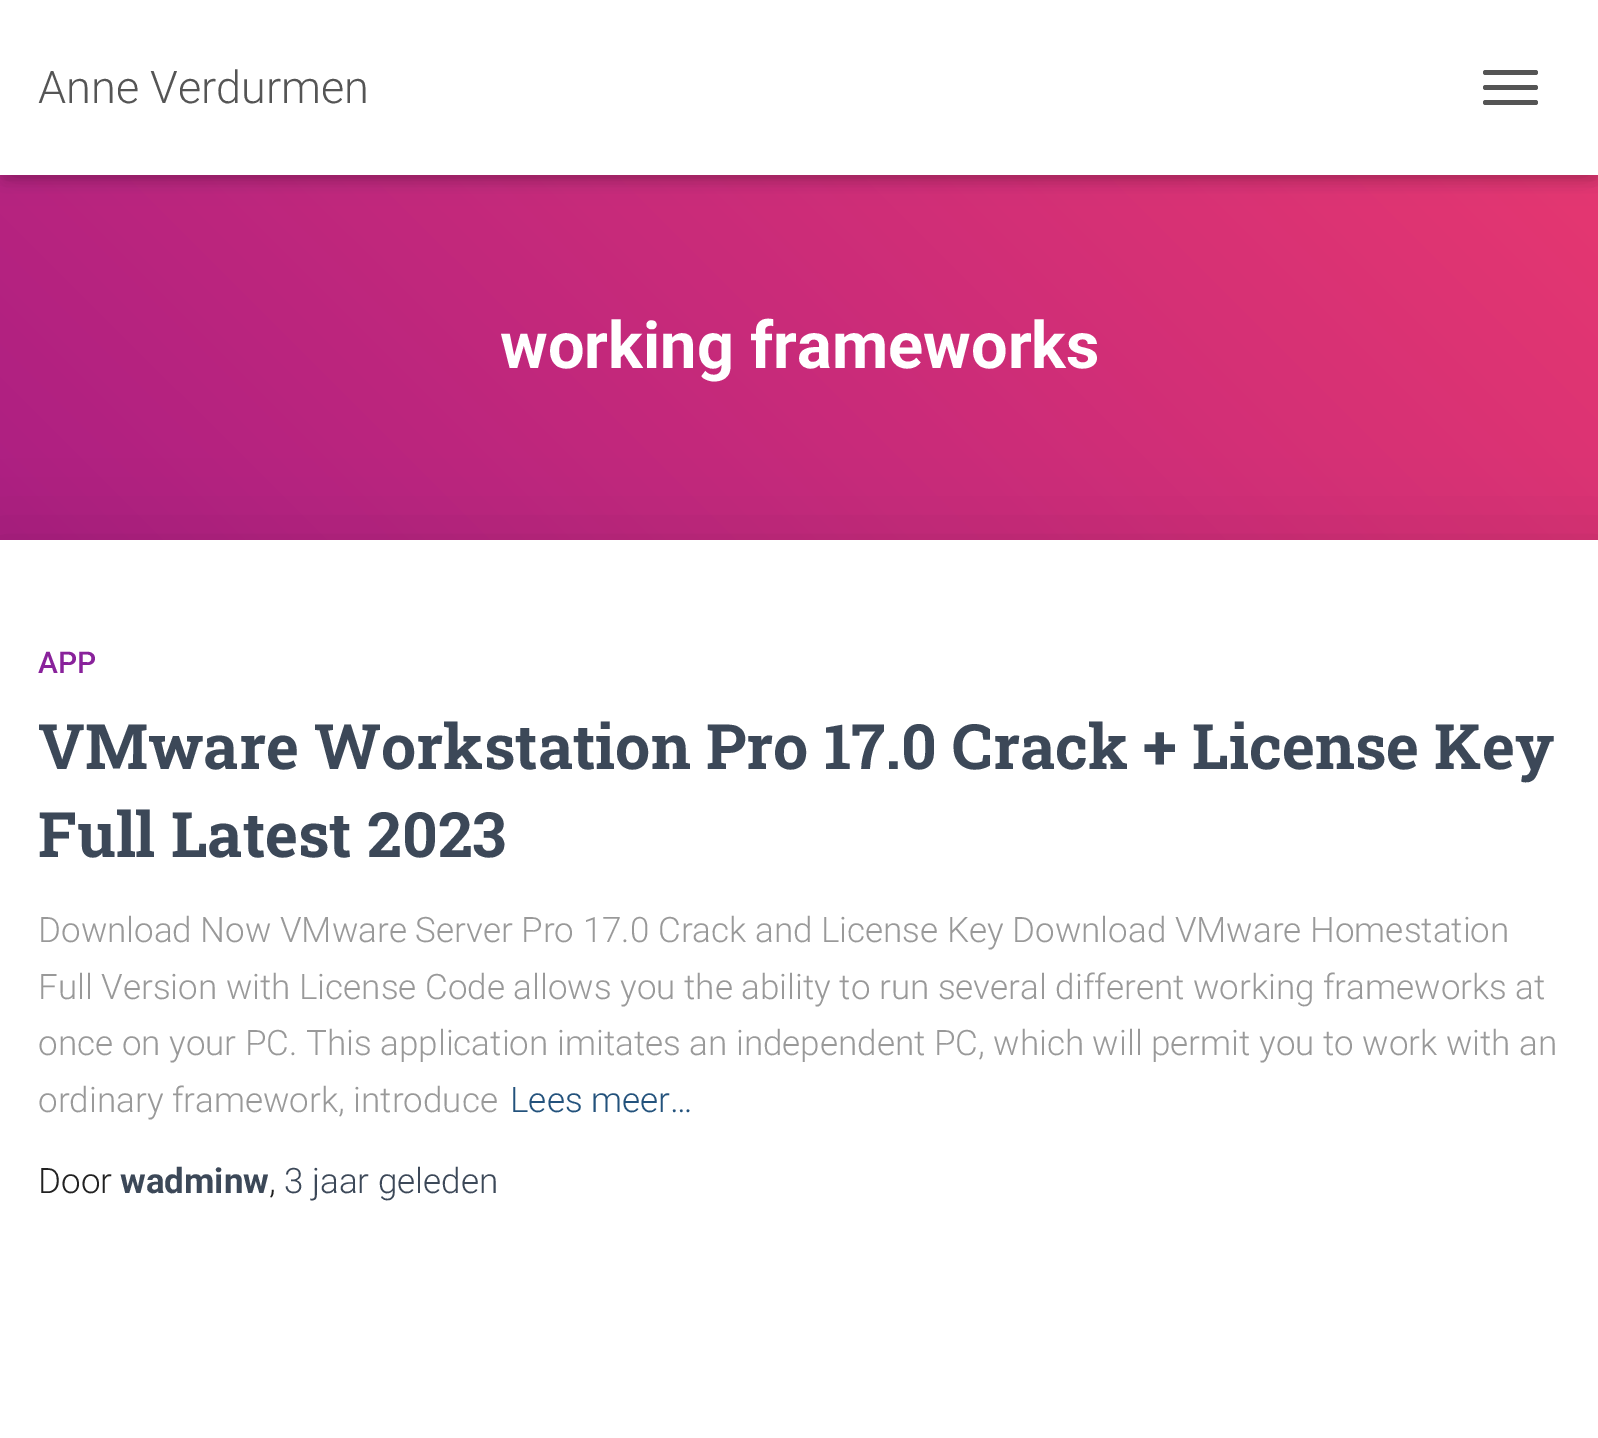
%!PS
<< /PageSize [1598 1438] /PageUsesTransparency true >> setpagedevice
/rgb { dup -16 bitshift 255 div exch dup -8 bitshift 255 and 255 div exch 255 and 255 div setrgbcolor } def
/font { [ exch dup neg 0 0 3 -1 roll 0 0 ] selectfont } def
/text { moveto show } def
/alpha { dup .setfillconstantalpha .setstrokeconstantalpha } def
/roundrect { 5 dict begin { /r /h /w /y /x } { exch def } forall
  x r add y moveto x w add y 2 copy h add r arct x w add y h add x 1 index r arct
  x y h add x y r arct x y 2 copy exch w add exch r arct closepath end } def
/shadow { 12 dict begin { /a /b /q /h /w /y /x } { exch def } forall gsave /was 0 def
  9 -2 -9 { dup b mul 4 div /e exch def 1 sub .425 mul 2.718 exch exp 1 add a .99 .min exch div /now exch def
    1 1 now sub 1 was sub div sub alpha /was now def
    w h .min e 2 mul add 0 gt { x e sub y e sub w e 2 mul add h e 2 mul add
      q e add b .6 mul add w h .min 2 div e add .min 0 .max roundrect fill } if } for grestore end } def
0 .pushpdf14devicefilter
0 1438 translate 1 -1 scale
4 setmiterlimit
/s1 { /Roboto-Light 45 font 16#555555 rgb } def
/s2 { /Roboto-Bold 65 font 16#FFFFFF rgb } def
/s3 { /Roboto-Medium 30 font 16#89229B rgb } def
/s4 { /RobotoSlab-Bold 62.5 font 16#3C4858 rgb } def
/s5 { /Roboto-Light 35 font 16#999999 rgb } def
/s6 { /Roboto-Light 35 font 16#23527C rgb } def
/s7 { /Roboto-Light 35 font 16#212121 rgb } def
/s8 { /Roboto-Bold 35 font 16#3C4858 rgb } def
/s9 { /Roboto-Light 35 font 16#3C4858 rgb } def
16#FFFFFF rgb
0 0 1598 1438 rectfill
gsave 0 175 moveto 1598 175 lineto 1598 540 lineto 0 540 lineto closepath clip newpath
<< /ShadingType 2 /ColorSpace /DeviceRGB /Coords [228 918 1373 -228] /Extend [true true] /Function << /FunctionType 2 /Domain [0 1] /C0 [0.659 0.114 0.518] /C1 [0.918 0.224 0.435] /N 1 >> >> shfill grestore
16#000000 rgb
5 15 1590 165 0 6 0.1 shadow
0 3 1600 175 0 12.5 0.12 shadow
15 18 1570 145 0 12.5 0.42 shadow
16#FFFFFF rgb
0 0 1598 175 rectfill
s1
(Anne Verdurmen) 38 103 text
1483 70 55 5 2.5 roundrect fill
1483 85 55 5 2.5 roundrect fill
1483 100 55 5 2.5 roundrect fill
s2
(working frameworks) 500 368 text
16#000000 rgb
-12 543 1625 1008 0 37.5 0.12 shadow
16#FFFFFF rgb
0 540 1598 898 rectfill
s3
(APP) 38 673 text
s4
(VMware Workstation Pro 17.0 Crack + License Key) 38 769 text
(Full Latest 2023) 38 857 text
s5
(Download Now VMware Server Pro 17.0 Crack and License Key Download VMware Homestation) 38 942 text
(Full Version with License Code allows you the ability to run several different working frameworks at) 38 999 text
(once on your PC. This application imitates an independent PC, which will permit you to work with an) 38 1055 text
(ordinary framework, introduce) 38 1112 text
s6
(Lees meer…) 510 1112 text
s7
(Door) 38 1193 text
s8
(wadminw) 120 1193 text
s7
(,) 269 1193 text
s9
(3 jaar geleden) 284 1193 text
.poppdf14devicefilter showpage
